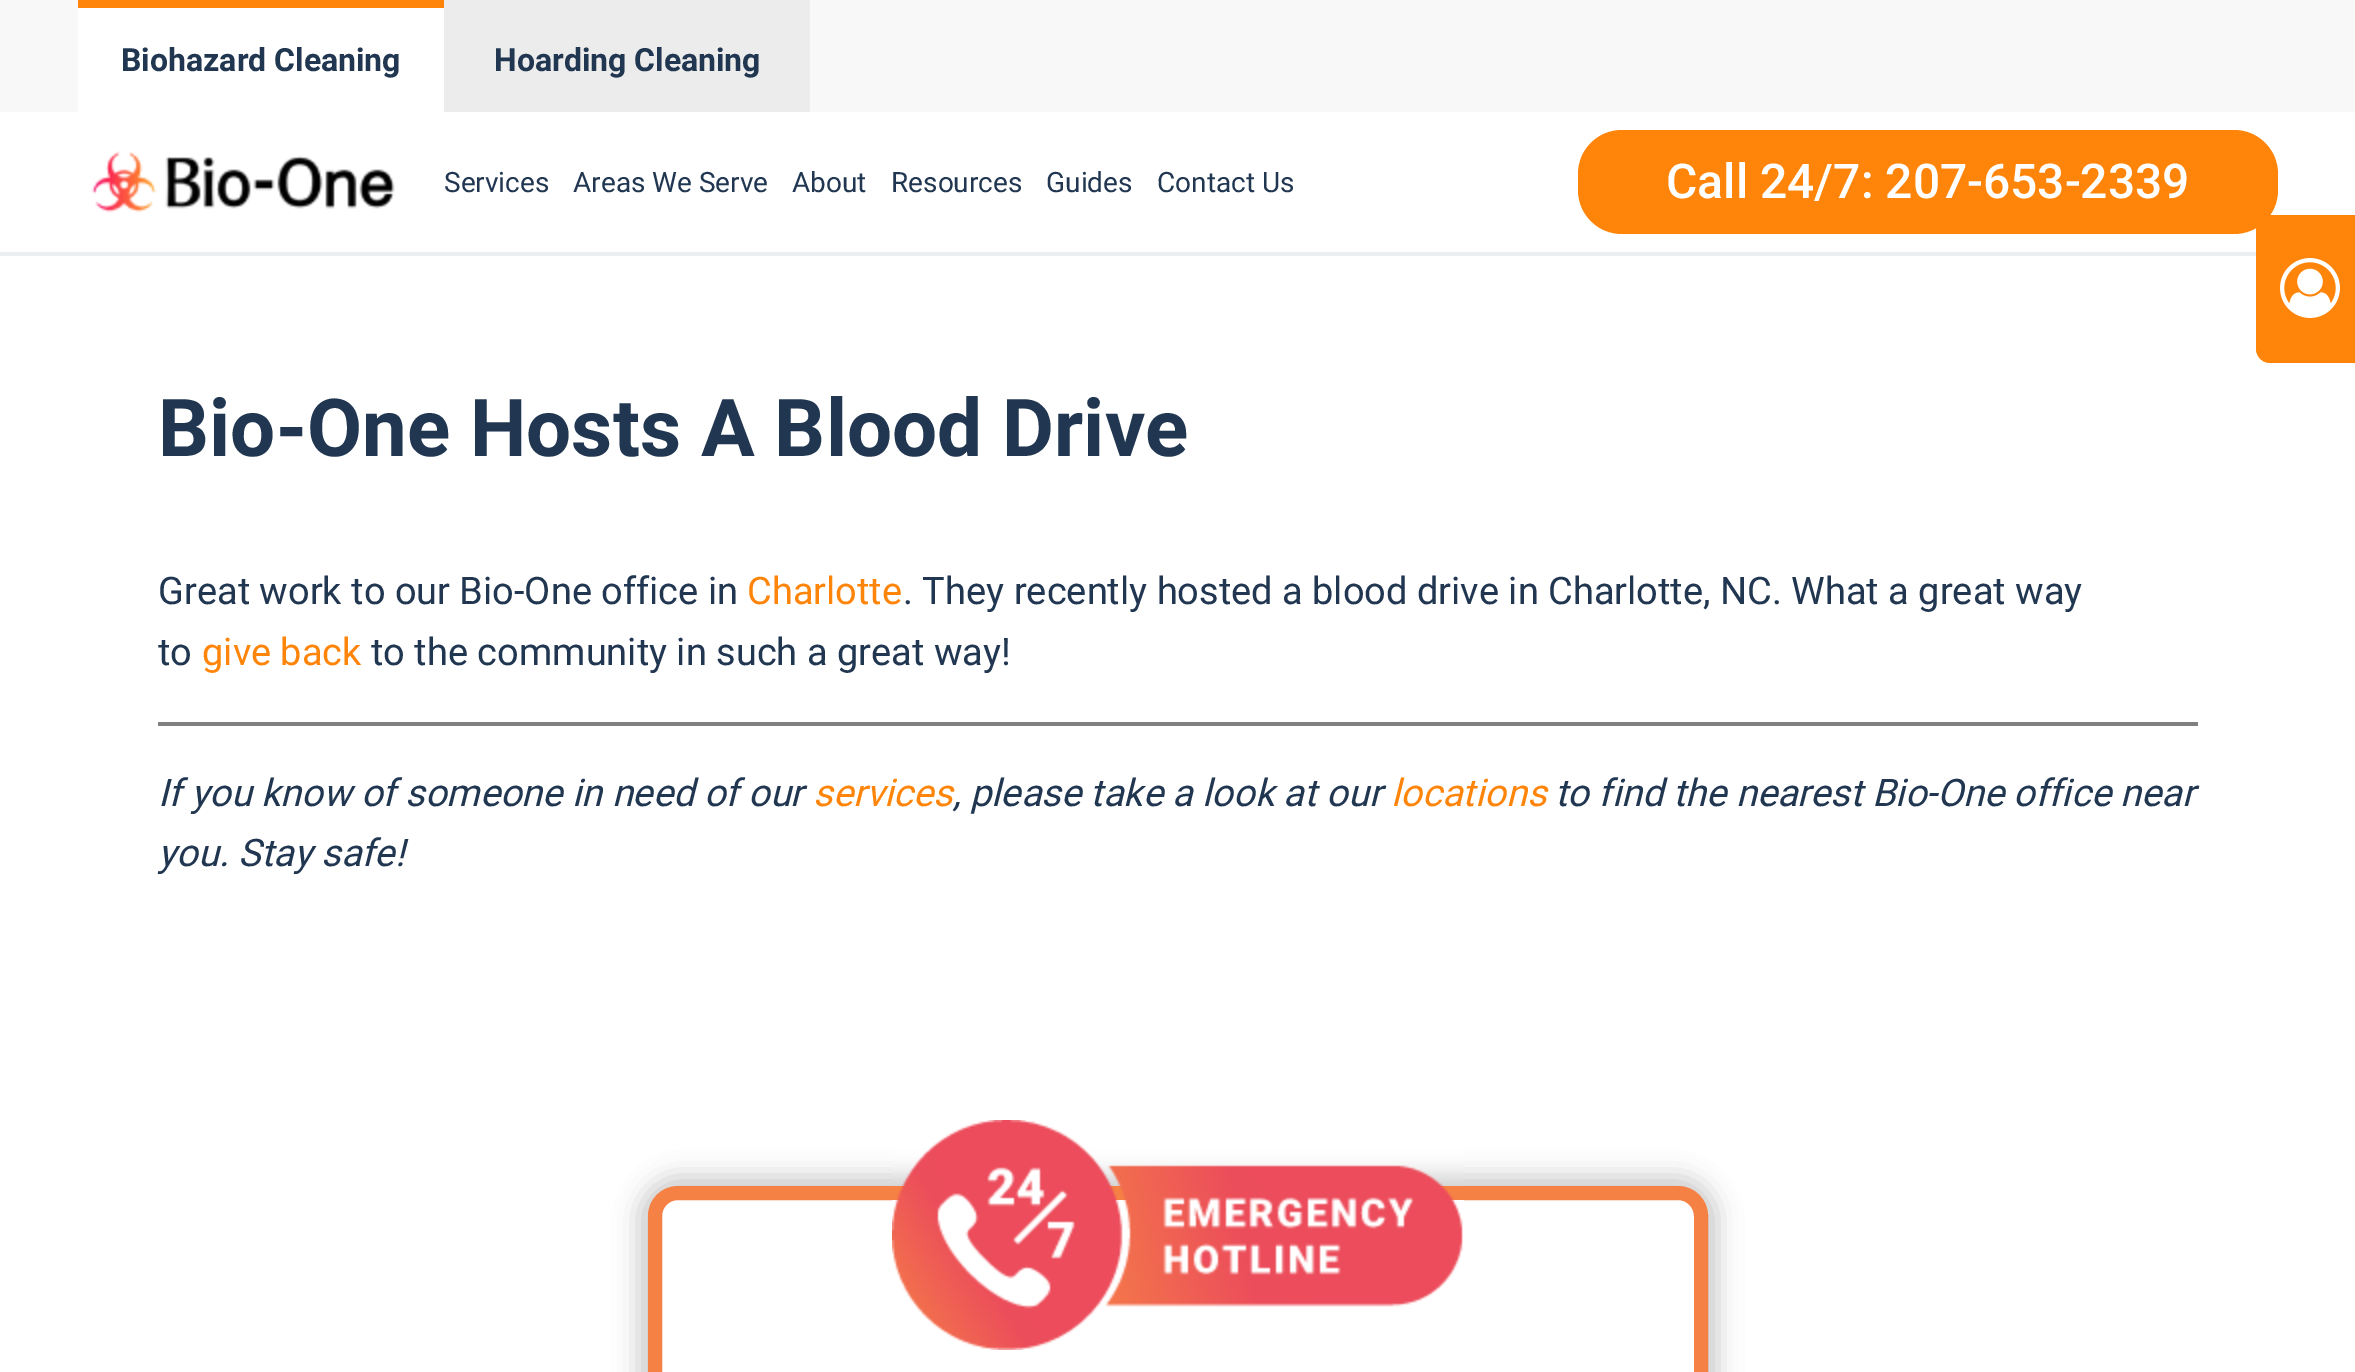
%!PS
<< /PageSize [2355 1372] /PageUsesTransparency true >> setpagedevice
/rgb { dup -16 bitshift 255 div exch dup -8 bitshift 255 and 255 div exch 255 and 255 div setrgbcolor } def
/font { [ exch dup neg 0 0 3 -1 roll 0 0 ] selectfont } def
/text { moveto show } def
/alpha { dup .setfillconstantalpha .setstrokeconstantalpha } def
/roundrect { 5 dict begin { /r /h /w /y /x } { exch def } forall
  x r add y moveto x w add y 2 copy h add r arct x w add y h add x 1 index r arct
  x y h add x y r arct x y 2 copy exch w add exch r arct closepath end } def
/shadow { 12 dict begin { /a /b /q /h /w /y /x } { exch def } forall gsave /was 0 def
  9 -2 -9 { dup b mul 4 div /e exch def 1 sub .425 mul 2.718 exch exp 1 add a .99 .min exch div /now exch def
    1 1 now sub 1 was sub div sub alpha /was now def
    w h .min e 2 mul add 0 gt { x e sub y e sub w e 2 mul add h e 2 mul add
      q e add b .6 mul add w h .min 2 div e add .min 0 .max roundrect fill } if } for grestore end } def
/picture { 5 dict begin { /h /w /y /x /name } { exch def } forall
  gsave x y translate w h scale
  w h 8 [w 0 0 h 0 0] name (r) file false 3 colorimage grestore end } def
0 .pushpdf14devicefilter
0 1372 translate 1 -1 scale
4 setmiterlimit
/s1 { /Roboto-Bold 32 font 16#213650 rgb } def
/s2 { /Roboto-Regular 28 font 16#213650 rgb } def
/s3 { /Roboto-Medium 48 font 16#FFFFFF rgb } def
/s4 { /Roboto-Bold 80 font 16#213650 rgb } def
/s5 { /Roboto-Regular 38 font 16#213650 rgb } def
/s6 { /Roboto-Regular 38 font 16#FF850A rgb } def
/s7 { /Roboto-Italic 38 font 16#213650 rgb } def
/s8 { /Roboto-Italic 38 font 16#FF850A rgb } def
16#FFFFFF rgb
0 0 2355 1372 rectfill
16#ECEFF1 rgb
0 252 2256 4 rectfill
16#F8F8F8 rgb
0 0 2355 112 rectfill
16#FFFFFF rgb
78 8 366 104 rectfill
16#FF850A rgb
78 0 366 8 rectfill
s1
(Biohazard Cleaning) 121 71 text
16#ECECEC rgb
444 0 366 112 rectfill
s1
(Hoarding Cleaning) 494 71 text
(pic1.raw) 91 151 304 62 picture
s2
(Services) 444 192 text
(Areas We Serve) 573 192 text
(About) 792 192 text
(Resources) 891 192 text
(Guides) 1046 192 text
(Contact Us) 1157 192 text
16#FF850A rgb
1578 130 700 104 44 roundrect fill
s3
(Call 24/7: 207-653-2339) 1666 198 text
16#FF850A rgb
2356 215 moveto 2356 363 lineto 2270 363 lineto 2262 363 2256 356 2256 349 curveto 2256 229 lineto 2256 221 2262 215 2270 215 curveto closepath fill
(pic2.raw) 2280 258 60 60 picture
s4
(Bio-One Hosts A Blood Drive) 158 456 text
s5
(Great work to our Bio-One office in) 158 604 text
s6
(Charlotte) 747 604 text
s5
(. They recently hosted a blood drive in Charlotte, NC. What a great way) 903 604 text
(to) 158 665 text
s6
(give back) 202 665 text
s5
(to the community in such a great way!) 371 665 text
16#808080 rgb
158 722 2040 4 rectfill
s7
(If you know of someone in need of our) 158 806 text
s8
(services) 813 806 text
s7
(, please take a look at our) 953 806 text
s8
(locations) 1391 806 text
s7
(to find the nearest Bio-One office near) 1555 806 text
(you. Stay safe!) 158 866 text
16#000000 rgb
638 1176 1080 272 40 12 0.2 shadow
16#FFFFFF rgb
655 1193 1046 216 23 roundrect gsave fill grestore
16#F58145 rgb
14 setlinewidth
stroke
(pic3.raw) 892 1120 572 230 picture
.poppdf14devicefilter showpage
